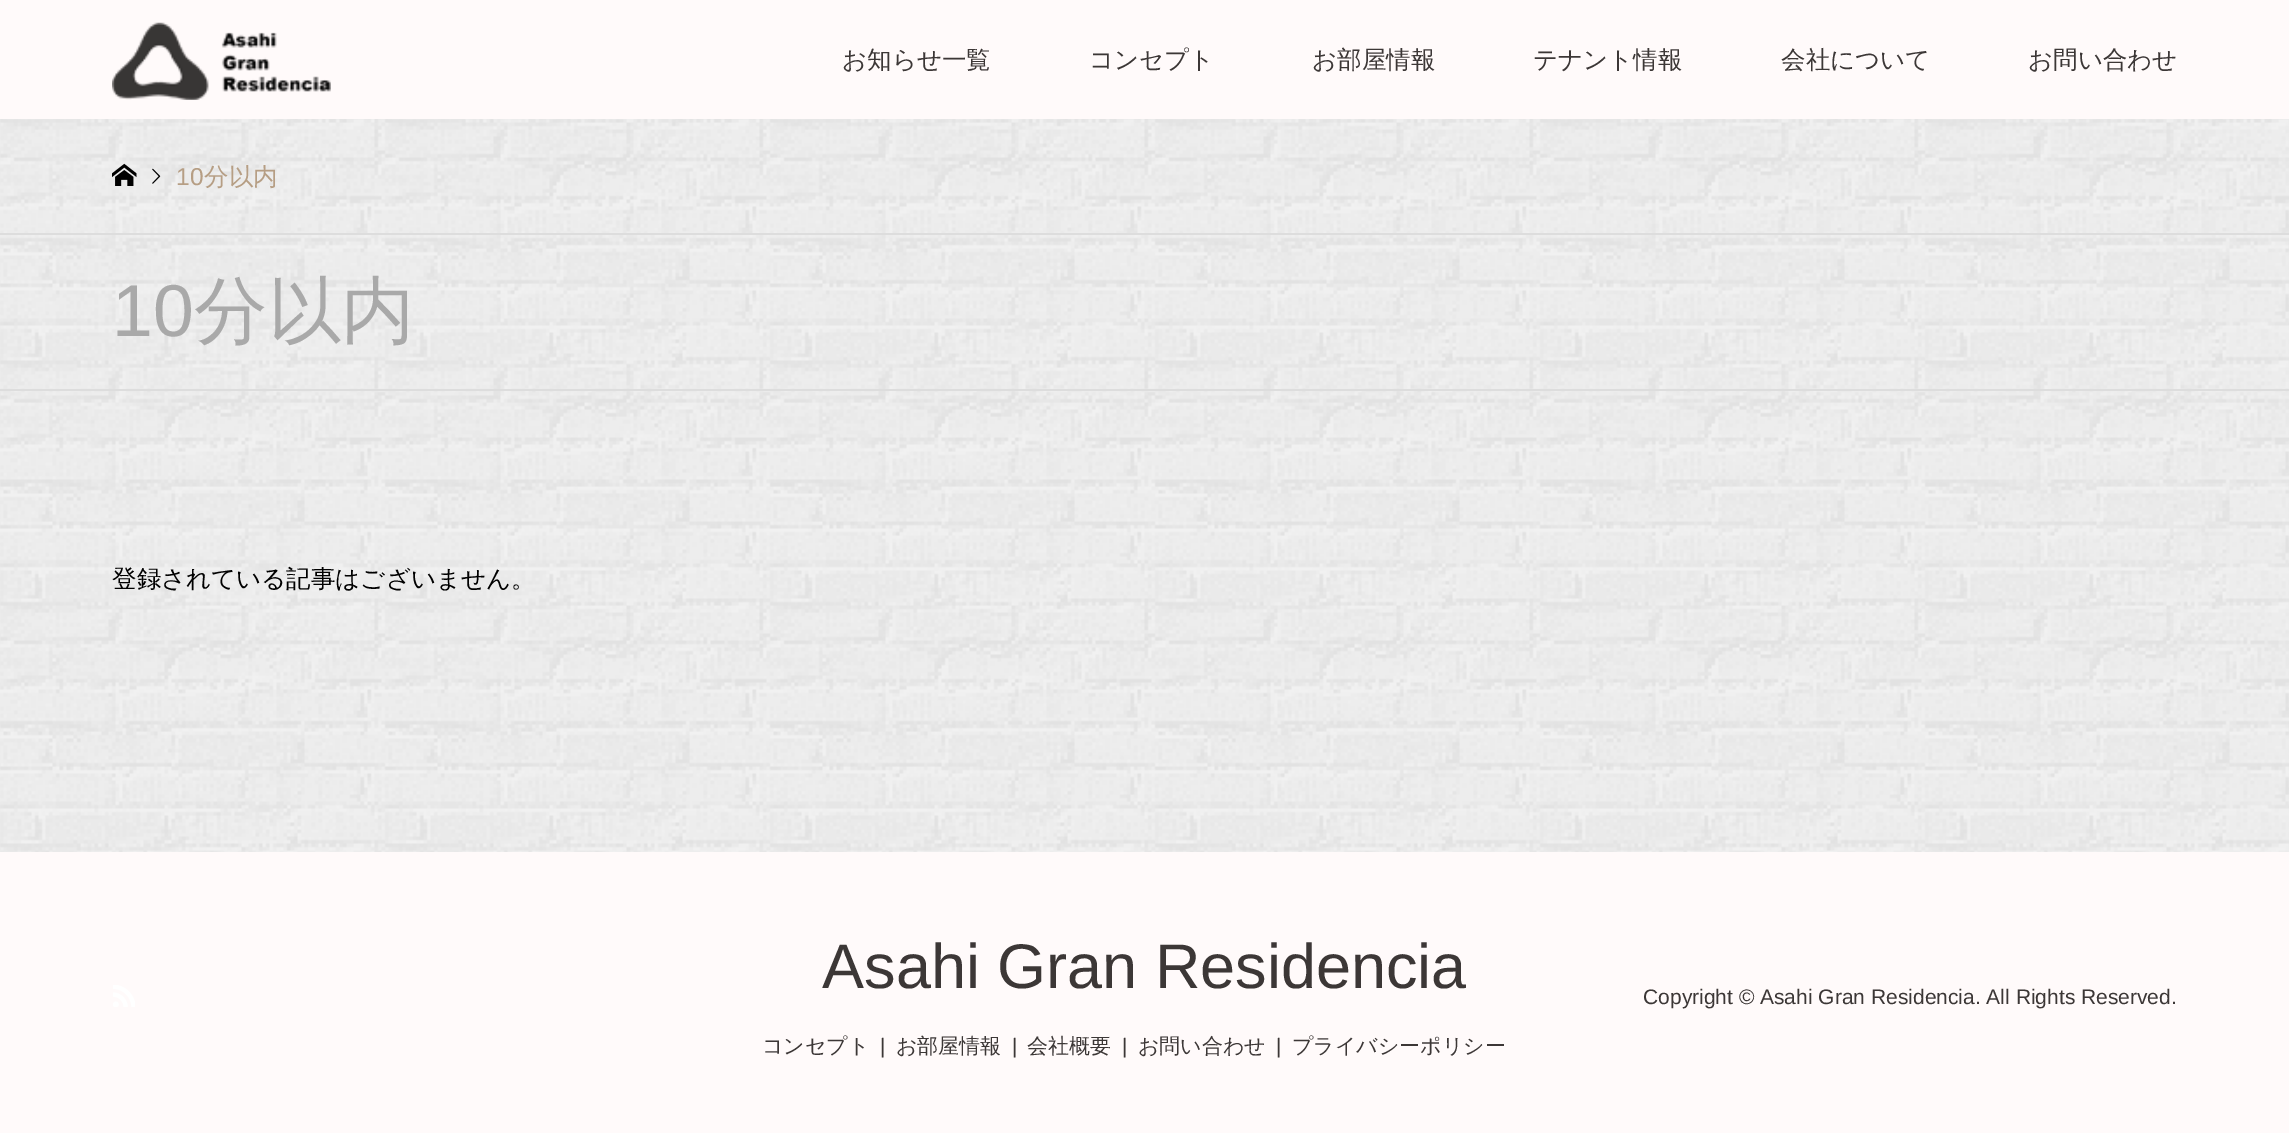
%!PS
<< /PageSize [2289 1133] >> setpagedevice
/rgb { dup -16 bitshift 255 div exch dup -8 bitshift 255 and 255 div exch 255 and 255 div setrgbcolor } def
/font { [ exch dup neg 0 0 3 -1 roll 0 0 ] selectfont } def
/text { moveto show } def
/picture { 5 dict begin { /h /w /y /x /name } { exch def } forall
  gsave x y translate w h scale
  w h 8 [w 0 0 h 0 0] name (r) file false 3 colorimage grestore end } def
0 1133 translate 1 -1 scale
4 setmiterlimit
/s1 { /WenQuanYiZenHei-Medium 24.5 font 16#3C3736 rgb } def
/s2 { /LiberationSans-Regular 24.5 font 16#B69E84 rgb } def
/s3 { /WenQuanYiZenHei-Medium 24.5 font 16#B69E84 rgb } def
/s4 { /LiberationSans-Regular 73.5 font 16#A9A9A9 rgb } def
/s5 { /WenQuanYiZenHei-Medium 73.5 font 16#A9A9A9 rgb } def
/s6 { /WenQuanYiZenHei-Medium 24.5 font 16#000000 rgb } def
/s7 { /LiberationSans-Regular 63 font 16#3C3736 rgb } def
/s8 { /LiberationSans-Regular 21 font 16#3C3736 rgb } def
/s9 { /WenQuanYiZenHei-Medium 21 font 16#3C3736 rgb } def
16#FFFFFF rgb
0 0 2289 1133 rectfill
(pic1.raw) 0 119 2289 733 picture
16#FFFAFA rgb
0 0 2289 119 rectfill
(pic2.raw) 112 22 219 78 picture
s1
(お知らせ一覧) 842 68 text
(コンセプト) 1089 68 text
(お部屋情報) 1312 68 text
(テナント情報) 1533 68 text
(会社について) 1781 68 text
(お問い合わせ) 2028 68 text
16#DDDDDD rgb
0 233 2289 2 rectfill
(pic3.raw) 112 163 25 23 picture
(pic4.raw) 152 168 9 16 picture
s2
(10) 176 185 text
s3
(分以内) 204 185 text
16#DDDDDD rgb
0 389 2289 2 rectfill
s4
(10) 112 336 text
s5
(分以内) 194 336 text
s6
(登録されている記事はございません。) 112 587 text
16#FFFAFA rgb
0 852 2289 281 rectfill
s7
(Asahi Gran Residencia) 822 988 text
(pic5.raw) 113 985 22 22 picture
s8
(Copyright © Asahi Gran Residencia. All Rights Reserved.) 1643 1004 text
s9
(コンセプト) 762 1053 text
s8
(|) 880 1053 text
s9
(お部屋情報) 896 1053 text
s8
(|) 1012 1053 text
s9
(会社概要) 1027 1053 text
s8
(|) 1122 1053 text
s9
(お問い合わせ) 1138 1053 text
s8
(|) 1276 1053 text
s9
(プライバシーポリシー) 1292 1053 text
showpage
